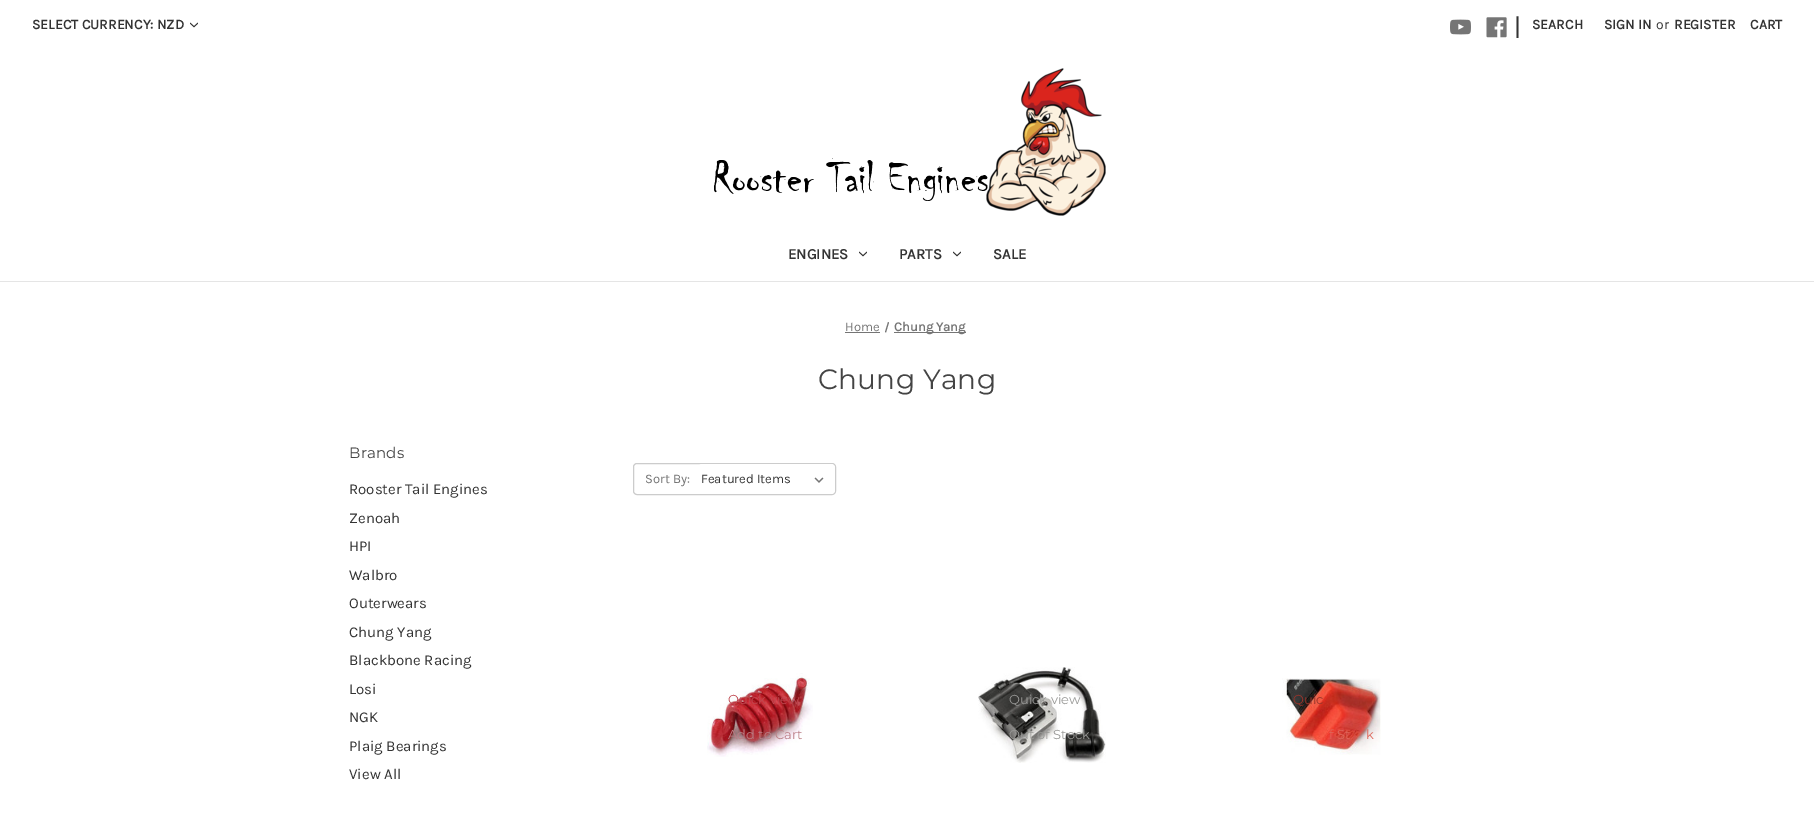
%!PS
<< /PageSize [1814 821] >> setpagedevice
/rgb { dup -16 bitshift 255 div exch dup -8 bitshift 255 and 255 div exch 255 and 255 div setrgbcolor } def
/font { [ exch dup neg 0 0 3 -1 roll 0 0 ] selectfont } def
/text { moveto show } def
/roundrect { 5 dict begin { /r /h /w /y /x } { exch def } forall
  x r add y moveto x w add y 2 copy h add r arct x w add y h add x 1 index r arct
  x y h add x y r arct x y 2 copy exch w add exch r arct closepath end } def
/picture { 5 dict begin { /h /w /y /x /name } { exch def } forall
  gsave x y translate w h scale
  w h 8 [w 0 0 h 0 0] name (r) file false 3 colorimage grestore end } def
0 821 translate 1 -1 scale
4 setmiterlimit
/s1 { /Karla-Bold 14 font 16#333333 rgb } def
/s2 { /Karla-Regular 25 font 16#333333 rgb } def
/s3 { /Karla-Regular 14 font 16#333333 rgb } def
/s4 { /Karla-Bold 15 font 16#333333 rgb } def
/s5 { /Karla-Regular 13 font 16#757575 rgb } def
/s6 { /Karla-Bold 13 font 16#757575 rgb } def
/s7 { /Karla-Regular 15 font 16#333333 rgb } def
/s8 { /Karla-Regular 13 font 16#333333 rgb } def
/s9 { /Montserrat-Thin 13 font 16#C04850 rgb } def
/s10 { /Montserrat-Thin 13 font 16#BB7F86 rgb } def
/s11 { /Montserrat-Thin 13 font 16#989896 rgb } def
/s12 { /Montserrat-Thin 13 font 16#97342B rgb } def
/s13 { /Montserrat-Thin 13 font 16#DF685C rgb } def
16#FFFFFF rgb
0 0 1814 821 rectfill
16#E5E5E5 rgb
0 281 1814 1 rectfill
s1
(SELECT CURRENCY: NZD) 32 29 text
(pic1.raw) 190 22 8 6 picture
(pic2.raw) 1450 19 21 16 picture
(pic3.raw) 1486 17 21 21 picture
s2
(|) 1514 35 text
s1
(SEARCH) 1532 29 text
(SIGN IN) 1604 29 text
s3
(or) 1656 29 text
s1
(REGISTER) 1674 29 text
(CART) 1750 29 text
(pic4.raw) 714 68 392 148 picture
s4
(ENGINES) 788 259 text
(pic1.raw) 859 251 8 6 picture
(PARTS) 899 259 text
(pic1.raw) 953 251 8 6 picture
(SALE) 993 259 text
s5
(Home) 845 331 text
845 332 35 1 rectfill
888 322 moveto 889 322.5 lineto 886 332.5 lineto 885 332 lineto closepath fill
894 332 72 1 rectfill
s6
(Chung Yang) 894 331 text
/Montserrat-Thin 28 font
16#444444 rgb
818 389 moveto 0.25 0 (Chung Yang) ashow
/Montserrat-Thin 15 font
349 458 moveto 0.25 0 (Brands) ashow
s7
(Rooster Tail Engines) 349 494 text
(Zenoah) 349 523 text
(HPI) 349 551 text
(Walbro) 349 580 text
(Outerwears) 349 608 text
(Chung Yang) 349 637 text
(Blackbone Racing) 349 665 text
(Losi) 349 694 text
(NGK) 349 722 text
(Plaig Bearings) 349 751 text
(View All) 349 779 text
16#CCCCCC rgb
633.5 463.5 202 31 3.5 roundrect stroke
s5
(Sort By:) 645 483 text
16#FFFFFF rgb
698 464 137 30 4 roundrect fill
(pic5.raw) 814 477 10 6 picture
s8
(Featured Items) 701 483 text
(pic6.raw) 707 673 106 84 picture
s9
(Quick view) 728 704 text
s10
(Add to Cart) 728 739 text
(pic7.raw) 978 667 128 96 picture
s11
(Quick view) 1009 704 text
(Out of Stock) 1009 739 text
(pic8.raw) 1282 678 99 77 picture
s12
(Quic) 1293 704 text
s13
(f St) 1329 739 text
(k) 1366 739 text
showpage
